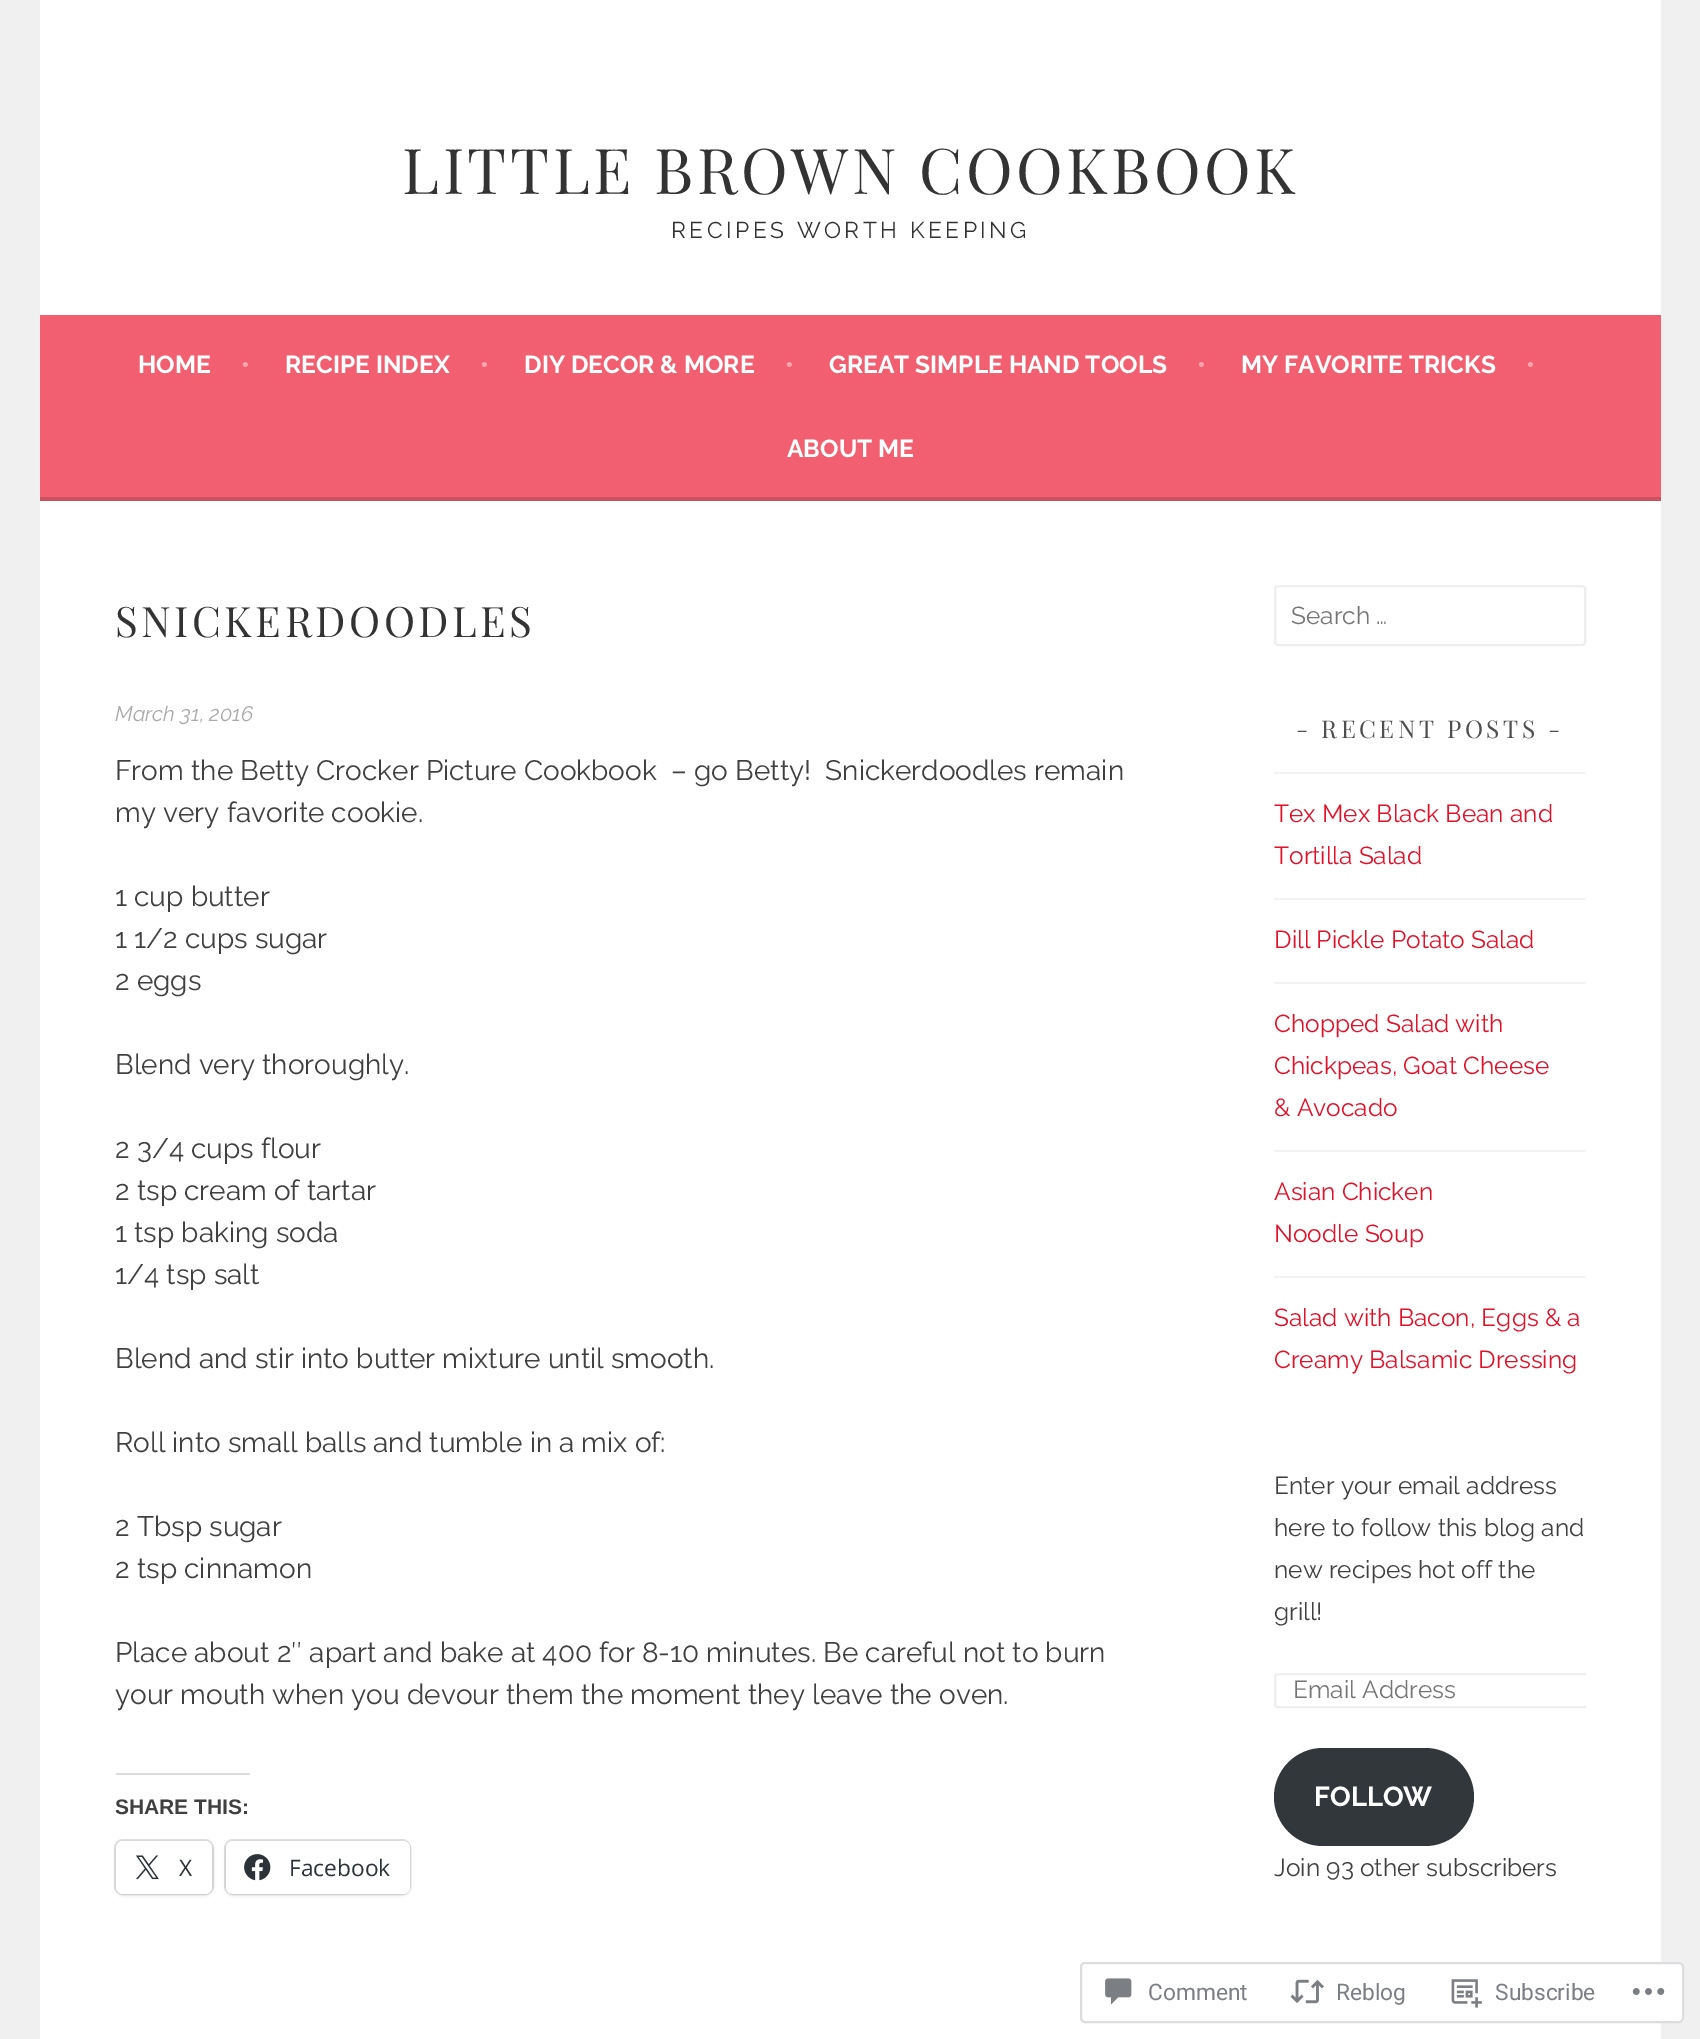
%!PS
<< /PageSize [1700 2039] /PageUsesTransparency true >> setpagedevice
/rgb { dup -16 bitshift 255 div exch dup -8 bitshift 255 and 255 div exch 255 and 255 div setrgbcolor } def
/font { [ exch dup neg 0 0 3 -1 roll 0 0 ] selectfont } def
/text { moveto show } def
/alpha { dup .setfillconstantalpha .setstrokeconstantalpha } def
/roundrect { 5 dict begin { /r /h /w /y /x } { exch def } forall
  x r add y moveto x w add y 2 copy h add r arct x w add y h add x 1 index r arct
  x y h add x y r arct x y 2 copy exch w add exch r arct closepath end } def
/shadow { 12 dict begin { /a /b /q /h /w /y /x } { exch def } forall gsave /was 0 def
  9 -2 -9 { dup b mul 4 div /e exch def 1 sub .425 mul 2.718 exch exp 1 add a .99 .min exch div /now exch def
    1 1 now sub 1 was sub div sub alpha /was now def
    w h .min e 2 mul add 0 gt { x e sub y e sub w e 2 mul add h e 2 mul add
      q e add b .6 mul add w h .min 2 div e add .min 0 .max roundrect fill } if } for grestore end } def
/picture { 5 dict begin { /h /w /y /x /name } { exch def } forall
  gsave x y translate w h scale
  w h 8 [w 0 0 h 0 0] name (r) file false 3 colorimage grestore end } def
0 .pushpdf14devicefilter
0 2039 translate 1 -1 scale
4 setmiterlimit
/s1 { /Raleway-Bold 24.5 font 16#FFFFFF rgb } def
/s2 { /Raleway-Bold 24.5 font 16#FFA4AD rgb } def
/s3 { /Raleway-Italic 21 font 16#AAAAAA rgb } def
/s4 { /Raleway-Regular 28 font 16#404040 rgb } def
/s5 { /LiberationSans-Bold 21 font 16#404040 rgb } def
/s6 { /OpenSans-Regular 22.75 font 16#2C3338 rgb } def
/s7 { /Raleway-Regular 24.5 font 16#757575 rgb } def
/s8 { /Raleway-Regular 24.5 font 16#E1122A rgb } def
/s9 { /Raleway-Regular 24.5 font 16#404040 rgb } def
/s10 { /Raleway-Bold 27.5 font 16#FFFFFF rgb } def
/s11 { /Roboto-Regular 22.75 font 16#7B7F85 rgb } def
16#F0F0F0 rgb
0 0 1700 2039 rectfill
16#FFFFFF rgb
40 0 1621 315 rectfill
/PlayfairDisplay-Regular 63 font
16#333333 rgb
402 194 moveto 3.5 0 (LITTLE BROWN COOKBOOK) ashow
/Raleway-Regular 22.75 font
671 238 moveto 3.5 0 (RECIPES WORTH KEEPING) ashow
16#F25F70 rgb
40 315 1621 182 rectfill
16#CE515F rgb
40 497 1621 4 rectfill
s1
(HOME) 138 373 text
s2
(•) 241 373 text
s1
(RECIPE INDEX) 285 373 text
s2
(•) 480 373 text
s1
(DIY DECOR & MORE) 524 373 text
s2
(•) 785 373 text
s1
(GREAT SIMPLE HAND TOOLS) 829 373 text
s2
(•) 1197 373 text
s1
(MY FAVORITE TRICKS) 1241 373 text
s2
(•) 1526 373 text
s1
(ABOUT ME) 787 457 text
40 501 1621 1538 rectfill
/PlayfairDisplay-Regular 42 font
16#333333 rgb
115 637 moveto 3.5 0 (SNICKERDOODLES) ashow
s3
(March 31, 2016) 115 721 text
s4
(From the Betty Crocker Picture Cookbook  – go Betty!  Snickerdoodles remain) 115 780 text
(my very favorite cookie.) 115 822 text
(1 cup butter) 115 906 text
(1 1/2 cups sugar) 115 948 text
(2 eggs) 115 990 text
(Blend very thoroughly.) 115 1074 text
(2 3/4 cups flour) 115 1158 text
(2 tsp cream of tartar) 115 1200 text
(1 tsp baking soda) 115 1242 text
(1/4 tsp salt) 115 1284 text
(Blend and stir into butter mixture until smooth.) 115 1368 text
(Roll into small balls and tumble in a mix of:) 115 1452 text
(2 Tbsp sugar) 115 1536 text
(2 tsp cinnamon) 115 1578 text
(Place about 2″ apart and bake at 400 for 8-10 minutes. Be careful not to burn) 115 1662 text
(your mouth when you devour them the moment they leave the oven.) 115 1704 text
16#DCDCDE rgb
116 1773 134 2 rectfill
s5
(SHARE THIS:) 115 1814 text
16#E0E0E0 rgb
2 setlinewidth
115 1840 98 54 8 roundrect stroke
16#000000 rgb
116 1843 96 52 7 2 0.12 shadow
16#FFFFFF rgb
116 1841 96 53 7 roundrect fill
(pic1.raw) 136 1855 23 25 picture
s6
(X) 179 1876 text
16#E0E0E0 rgb
225 1840 185 54 8 roundrect stroke
16#000000 rgb
226 1843 184 52 7 2 0.12 shadow
16#FFFFFF rgb
226 1841 184 53 7 roundrect fill
(pic2.raw) 244 1854 27 27 picture
s6
(Facebook) 289 1876 text
16#EEEEEE rgb
1275 586 310 59 3 roundrect stroke
s7
(Search …) 1291 624 text
/PlayfairDisplay-Regular 24.5 font
16#4F4F4F rgb
1296 738 moveto 3.5 0 (- RECENT POSTS -) ashow
16#F2F2F2 rgb
1274 772 312 2 rectfill
s8
(Tex Mex Black Bean and) 1274 822 text
(Tortilla Salad) 1274 864 text
16#F2F2F2 rgb
1274 898 312 2 rectfill
s8
(Dill Pickle Potato Salad) 1274 948 text
16#F2F2F2 rgb
1274 982 312 2 rectfill
s8
(Chopped Salad with) 1274 1032 text
(Chickpeas, Goat Cheese) 1274 1074 text
(& Avocado) 1274 1116 text
16#F2F2F2 rgb
1274 1150 312 2 rectfill
s8
(Asian Chicken) 1274 1200 text
(Noodle Soup) 1274 1242 text
16#F2F2F2 rgb
1274 1276 312 2 rectfill
s8
(Salad with Bacon, Eggs & a) 1274 1326 text
(Creamy Balsamic Dressing) 1274 1368 text
s9
(Enter your email address) 1274 1494 text
(here to follow this blog and) 1274 1536 text
(new recipes hot off the) 1274 1578 text
(grill!) 1274 1620 text
gsave
1274 585 312 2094 rectclip
16#EEEEEE rgb
1275 1674 332 33 3 roundrect stroke
grestore
s7
(Email Address) 1293 1698 text
16#32373C rgb
1274 1748 200 98 49 roundrect fill
s10
(FOLLOW) 1314 1806 text
s9
(Join 93 other subscribers) 1274 1876 text
0.98 alpha
16#FFFFFF rgb
1080 1962 604 61 5 roundrect fill
16#DCDCDE rgb
1081 1963 602 59 4 roundrect stroke
1 alpha
(pic3.raw) 1105 1978 27 27 picture
s11
(Comment) 1148 2000 text
(pic4.raw) 1290 1979 34 25 picture
(Reblog) 1336 2000 text
(pic5.raw) 1451 1979 31 29 picture
(Subscribe) 1495 2000 text
(pic6.raw) 1632 1988 33 7 picture
.poppdf14devicefilter showpage
